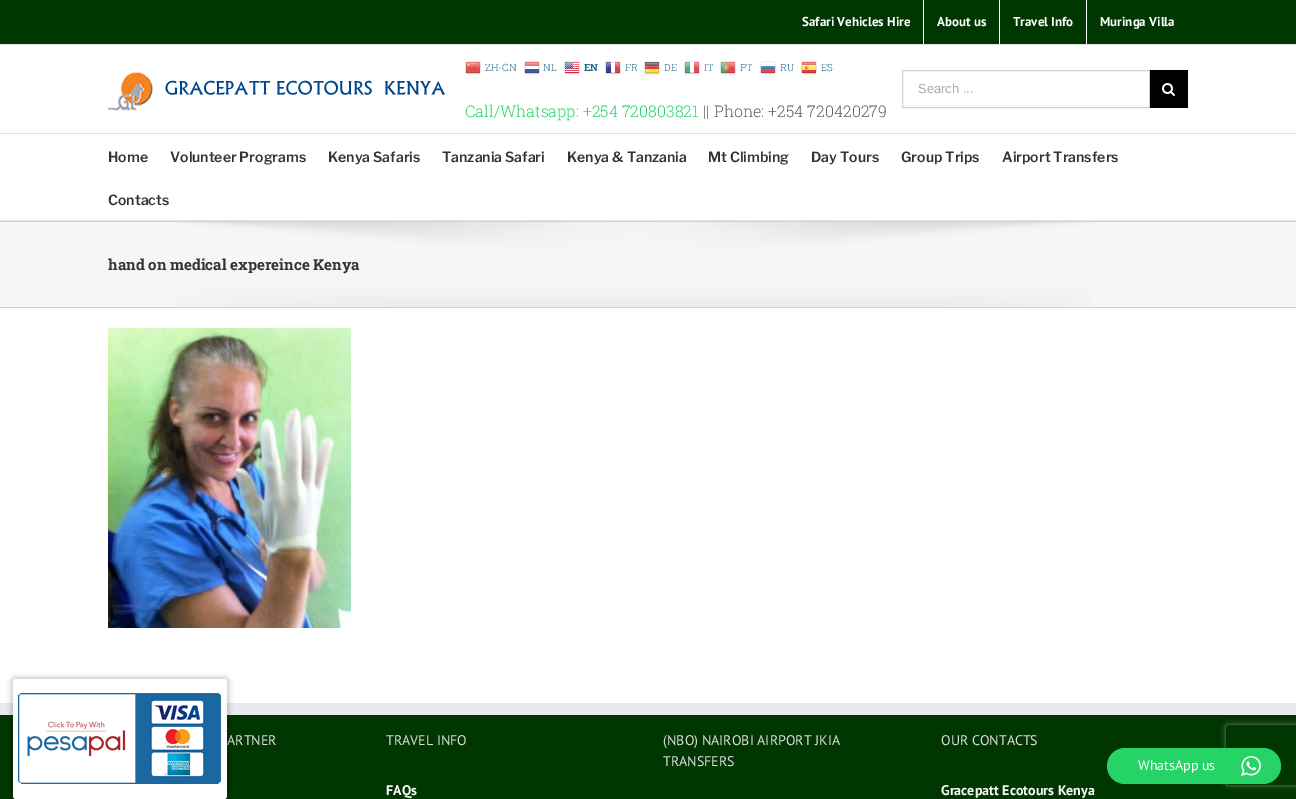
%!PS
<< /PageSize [1296 799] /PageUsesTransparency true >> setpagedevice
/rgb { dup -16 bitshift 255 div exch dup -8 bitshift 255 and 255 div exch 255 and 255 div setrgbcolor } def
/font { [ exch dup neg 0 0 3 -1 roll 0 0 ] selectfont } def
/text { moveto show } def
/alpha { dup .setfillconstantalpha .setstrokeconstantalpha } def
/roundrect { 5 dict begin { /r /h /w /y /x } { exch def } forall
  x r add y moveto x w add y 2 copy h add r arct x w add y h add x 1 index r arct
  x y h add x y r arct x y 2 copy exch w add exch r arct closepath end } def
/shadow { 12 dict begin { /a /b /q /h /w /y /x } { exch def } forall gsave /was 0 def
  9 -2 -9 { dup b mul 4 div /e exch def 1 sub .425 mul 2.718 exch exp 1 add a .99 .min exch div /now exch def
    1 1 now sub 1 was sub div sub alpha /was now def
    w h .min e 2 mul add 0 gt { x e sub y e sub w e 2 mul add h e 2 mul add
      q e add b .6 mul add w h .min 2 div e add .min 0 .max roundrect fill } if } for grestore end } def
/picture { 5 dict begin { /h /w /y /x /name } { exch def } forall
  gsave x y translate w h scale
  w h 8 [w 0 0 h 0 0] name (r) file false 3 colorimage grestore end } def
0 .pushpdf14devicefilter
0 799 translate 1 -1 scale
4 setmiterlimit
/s1 { /PTSans-Bold 13 font 16#FFFFFF rgb } def
/s2 { /RobotoSlab-Light 10 font 16#20688C rgb } def
/s3 { /RobotoSlab-Bold 10 font 16#20688C rgb } def
/s4 { /RobotoSlab-Light 16 font 16#25D366 rgb } def
/s5 { /RobotoSlab-Light 16 font 16#5E5E5E rgb } def
/s6 { /LiberationSans-Regular 13 font 16#AAA9A9 rgb } def
/s7 { /LibreFranklin-Thin 14 font 16#333333 rgb } def
/s8 { /RobotoSlab-Bold 15 font 16#333333 rgb } def
/s9 { /PTSans-Regular 14 font 16#DDDDDD rgb } def
/s10 { /PTSans-Bold 14 font 16#F9F9F9 rgb } def
/s11 { /PTSans-Regular 14 font 16#FFFFFF rgb } def
16#FFFFFF rgb
0 0 1296 799 rectfill
16#003700 rgb
0 0 1296 44 rectfill
16#E1E1E1 rgb
0 44 1296 1 rectfill
s1
(Safari Vehicles Hire) 802 26 text
923 0 1 44 rectfill
(About us) 937 26 text
999 0 1 44 rectfill
(Travel Info) 1013 26 text
1086 0 1 44 rectfill
(Muringa Villa) 1100 26 text
16#E1E1E1 rgb
0 133 1296 1 rectfill
(pic1.raw) 108 72 338 39 picture
(pic2.raw) 465 61 16 14 picture
s2
(ZH-CN) 485 71 text
(pic3.raw) 524 61 16 14 picture
(NL) 543 71 text
(pic4.raw) 564 61 16 14 picture
s3
(EN) 584 71 text
(pic5.raw) 605 61 16 14 picture
s2
(FR) 625 71 text
(pic6.raw) 644 61 16 14 picture
(DE) 664 71 text
(pic7.raw) 684 61 16 14 picture
(IT) 704 71 text
(pic8.raw) 720 61 16 14 picture
(PT) 740 71 text
(pic9.raw) 760 61 16 14 picture
(RU) 780 71 text
(pic10.raw) 801 61 16 14 picture
(ES) 821 71 text
s4
(Call/Whatsapp: +254 720803821) 465 117 text
s5
(|| Phone: +254 720420279) 703 117 text
16#D2D2D2 rgb
902.5 70.5 247 37 rectstroke
s6
(Search ...) 918 93 text
16#000000 rgb
1150 70 38 38 rectfill
(pic11.raw) 1162 83 13 13 picture
16#E1E1E1 rgb
0 220 1296 1 rectfill
s7
(Home) 108 162 text
(Volunteer Programs) 170 162 text
(Kenya Safaris) 328 162 text
(Tanzania Safari) 442 162 text
(Kenya & Tanzania) 567 162 text
(Mt Climbing) 708 162 text
(Day Tours) 811 162 text
(Group Trips) 901 162 text
(Airport Transfers) 1002 162 text
(Contacts) 108 205 text
16#F6F6F6 rgb
0 222 1296 85 rectfill
(pic12.raw) 176 222 914 85 picture
16#D2D3D4 rgb
0 221 1296 1 rectfill
0 307 1296 1 rectfill
s8
(hand on medical expereince Kenya) 108 270 text
(pic13.raw) 108 328 243 300 picture
16#003700 rgb
0 715 1296 84 rectfill
16#E9EAEE rgb
0 703 1296 12 rectfill
s9
(ARTNER) 227 745 text
(TRAVEL INFO) 386 745 text
s10
(FAQs) 386 795 text
s9
(\(NBO\) NAIROBI AIRPORT JKIA) 663 745 text
(TRANSFERS) 663 766 text
(OUR CONTACTS) 941 745 text
s10
(Gracepatt Ecotours Kenya) 941 795 text
16#000000 rgb
11 677 218 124 5 2.5 0.2 shadow
16#FFFFFF rgb
13 679 214 120 3 roundrect fill
(pic14.raw) 18 693 203 91 picture
gsave
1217 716 moveto 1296 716 lineto 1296 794 lineto 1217 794 lineto closepath 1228 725 moveto 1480 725 lineto 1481 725 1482 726 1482 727 curveto 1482 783 lineto 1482 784 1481 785 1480 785 curveto 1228 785 lineto 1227 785 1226 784 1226 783 curveto 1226 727 lineto 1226 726 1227 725 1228 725 curveto closepath eoclip newpath
16#808080 rgb
1226 725 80 60 2 2.5 1 shadow
grestore
16#25D366 rgb
1107 748 174 36 18 roundrect fill
s11
(WhatsApp us) 1138 770 text
(pic15.raw) 1241 756 20 20 picture
.poppdf14devicefilter showpage
